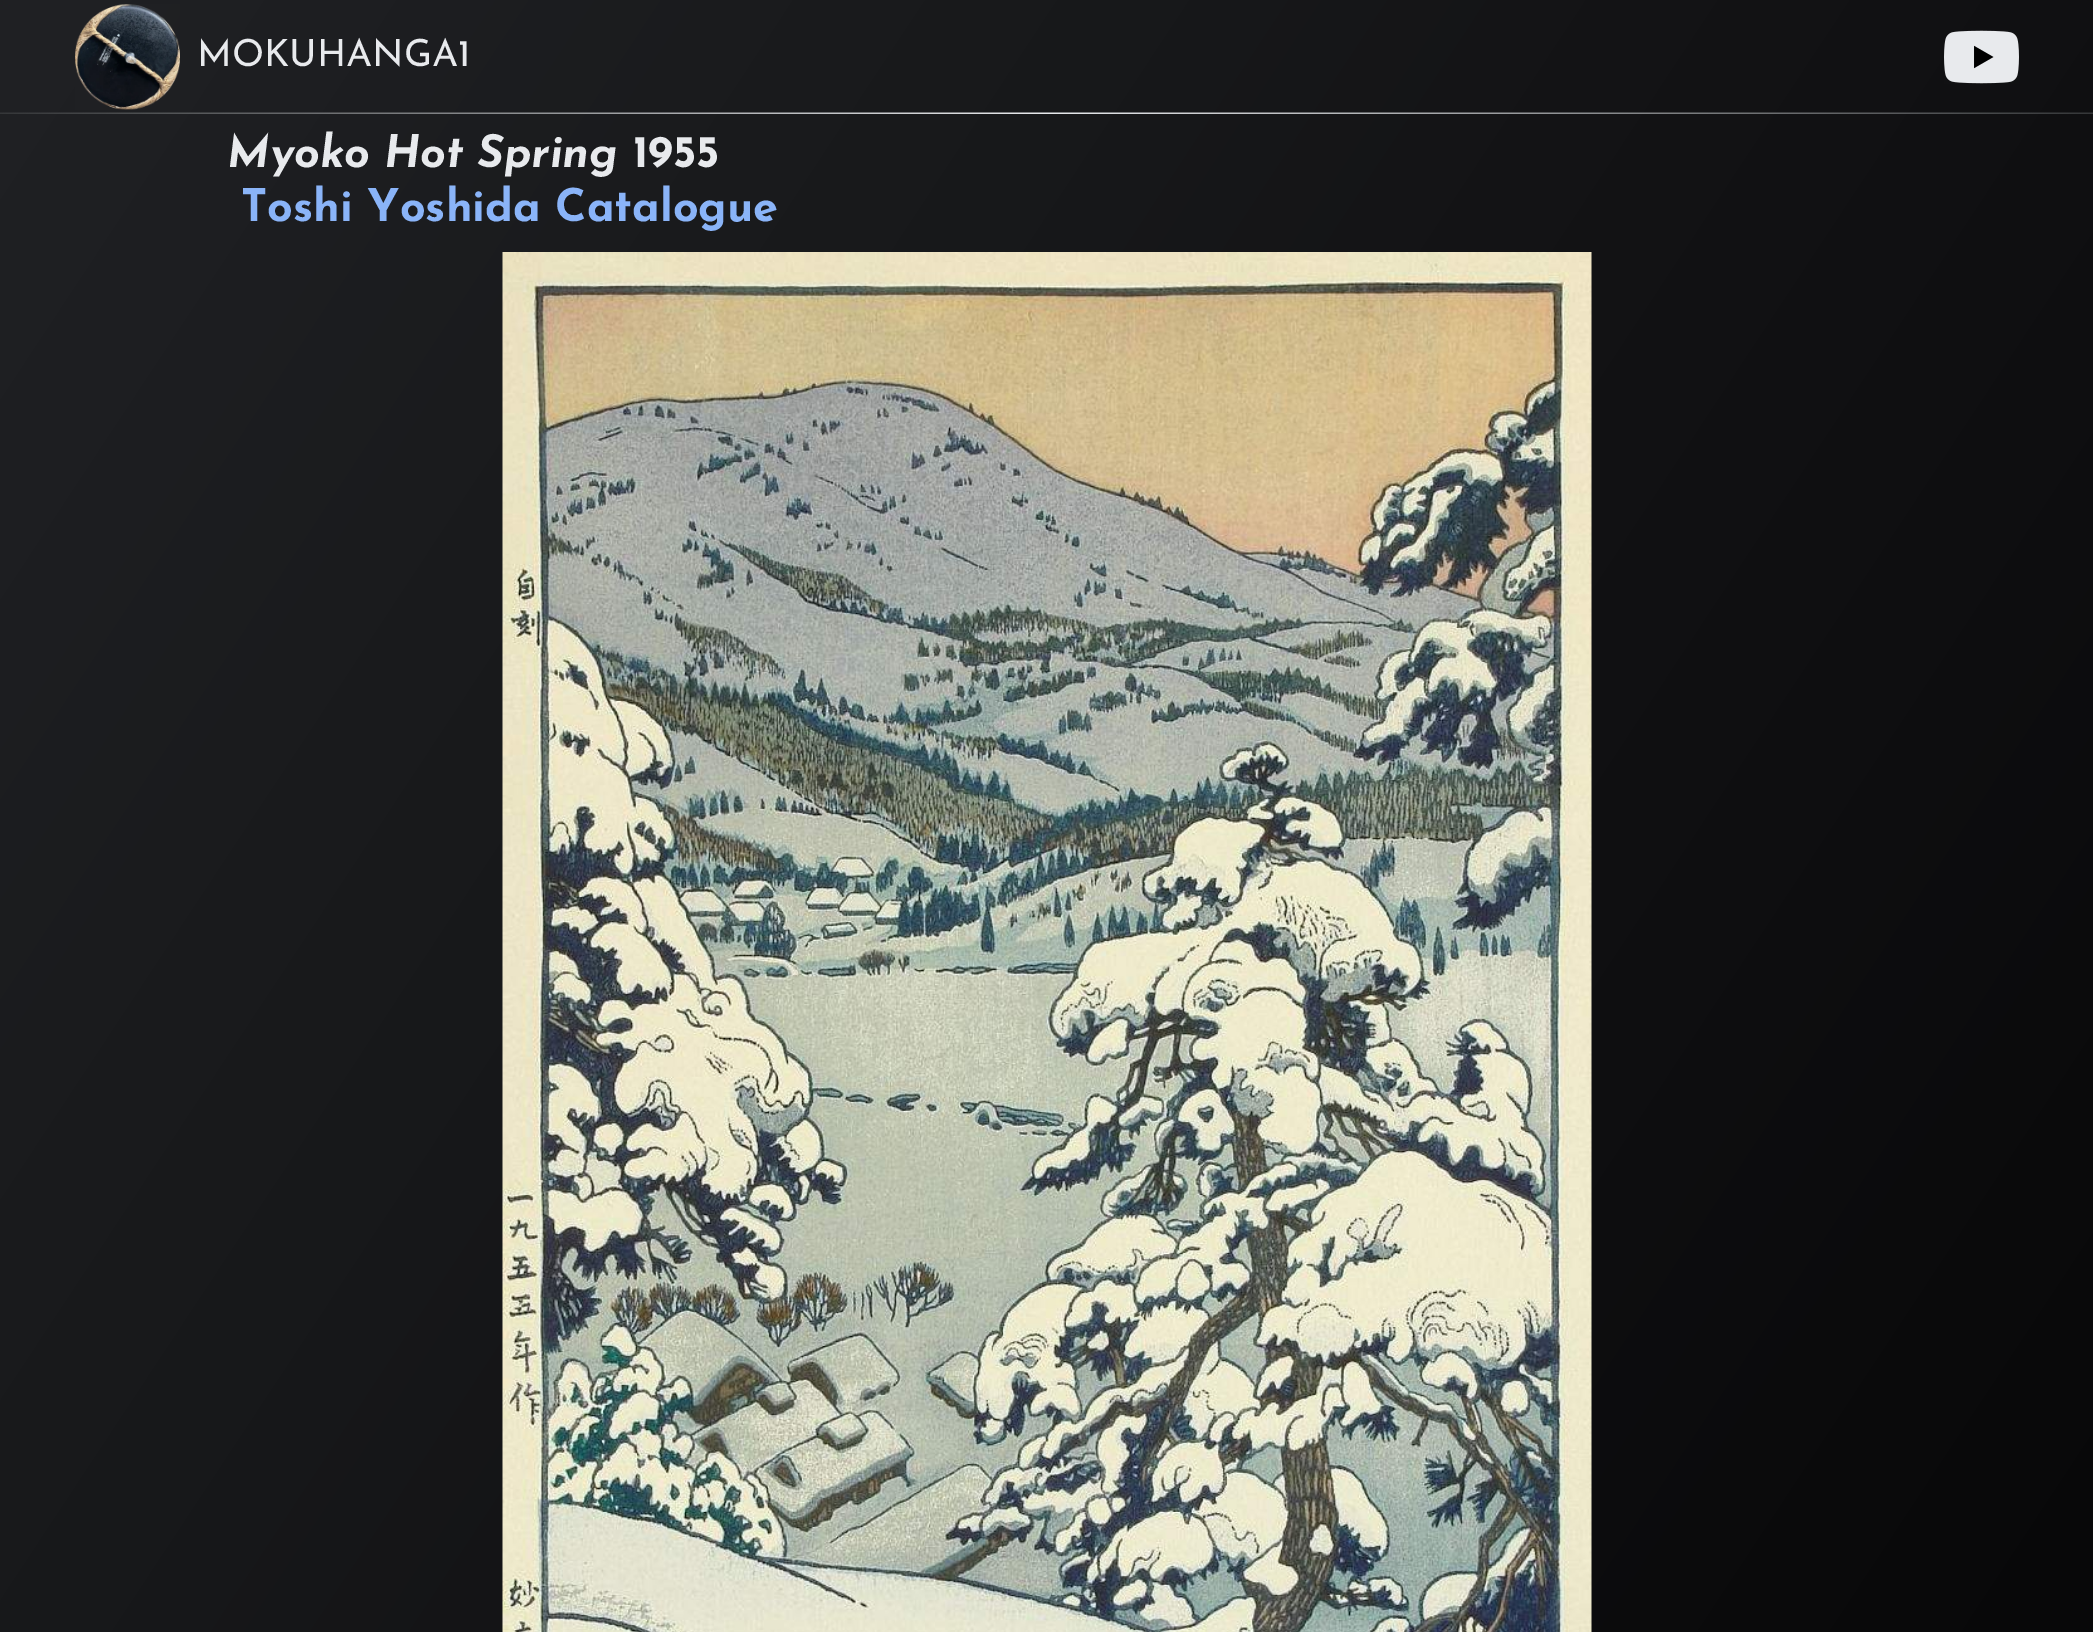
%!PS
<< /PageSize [2093 1632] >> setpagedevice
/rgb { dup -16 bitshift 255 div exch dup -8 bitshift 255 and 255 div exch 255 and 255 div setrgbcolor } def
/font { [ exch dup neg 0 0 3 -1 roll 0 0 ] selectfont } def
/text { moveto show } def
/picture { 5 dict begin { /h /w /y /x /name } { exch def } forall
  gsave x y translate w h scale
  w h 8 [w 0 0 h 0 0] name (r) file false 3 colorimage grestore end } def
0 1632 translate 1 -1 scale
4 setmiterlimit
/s1 { /JosefinSans-Thin 37.5 font 16#E8EAED rgb } def
/s2 { /JosefinSans-ThinItalic 45 font 16#E8EAED rgb } def
/s3 { /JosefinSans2-Thin 45 font 16#E8EAED rgb } def
/s4 { /JosefinSans2-Thin 45 font 16#8AB4F8 rgb } def
16#FFFFFF rgb
0 0 2093 1632 rectfill
gsave 0 0 moveto 2093 0 lineto 2093 1632 lineto 0 1632 lineto closepath clip newpath
<< /ShadingType 2 /ColorSpace /DeviceRGB /Coords [-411 622 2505 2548] /Extend [true true] /Function << /FunctionType 2 /Domain [0 1] /C0 [0.125 0.129 0.141] /C1 [0 0 0] /N 1 >> >> shfill grestore
(pic1.raw) 0 112 2093 2 picture
(pic2.raw) 75 4 105 106 picture
s1
(MOKUHANGA1) 197 66 text
(pic3.raw) 1944 30 75 54 picture
s2
(Myoko Hot Spring) 227 167 text
s3
(1955) 633 167 text
s4
(Toshi Yoshida Catalogue) 241 221 text
(pic4.raw) 502 252 1090 1380 picture
showpage
